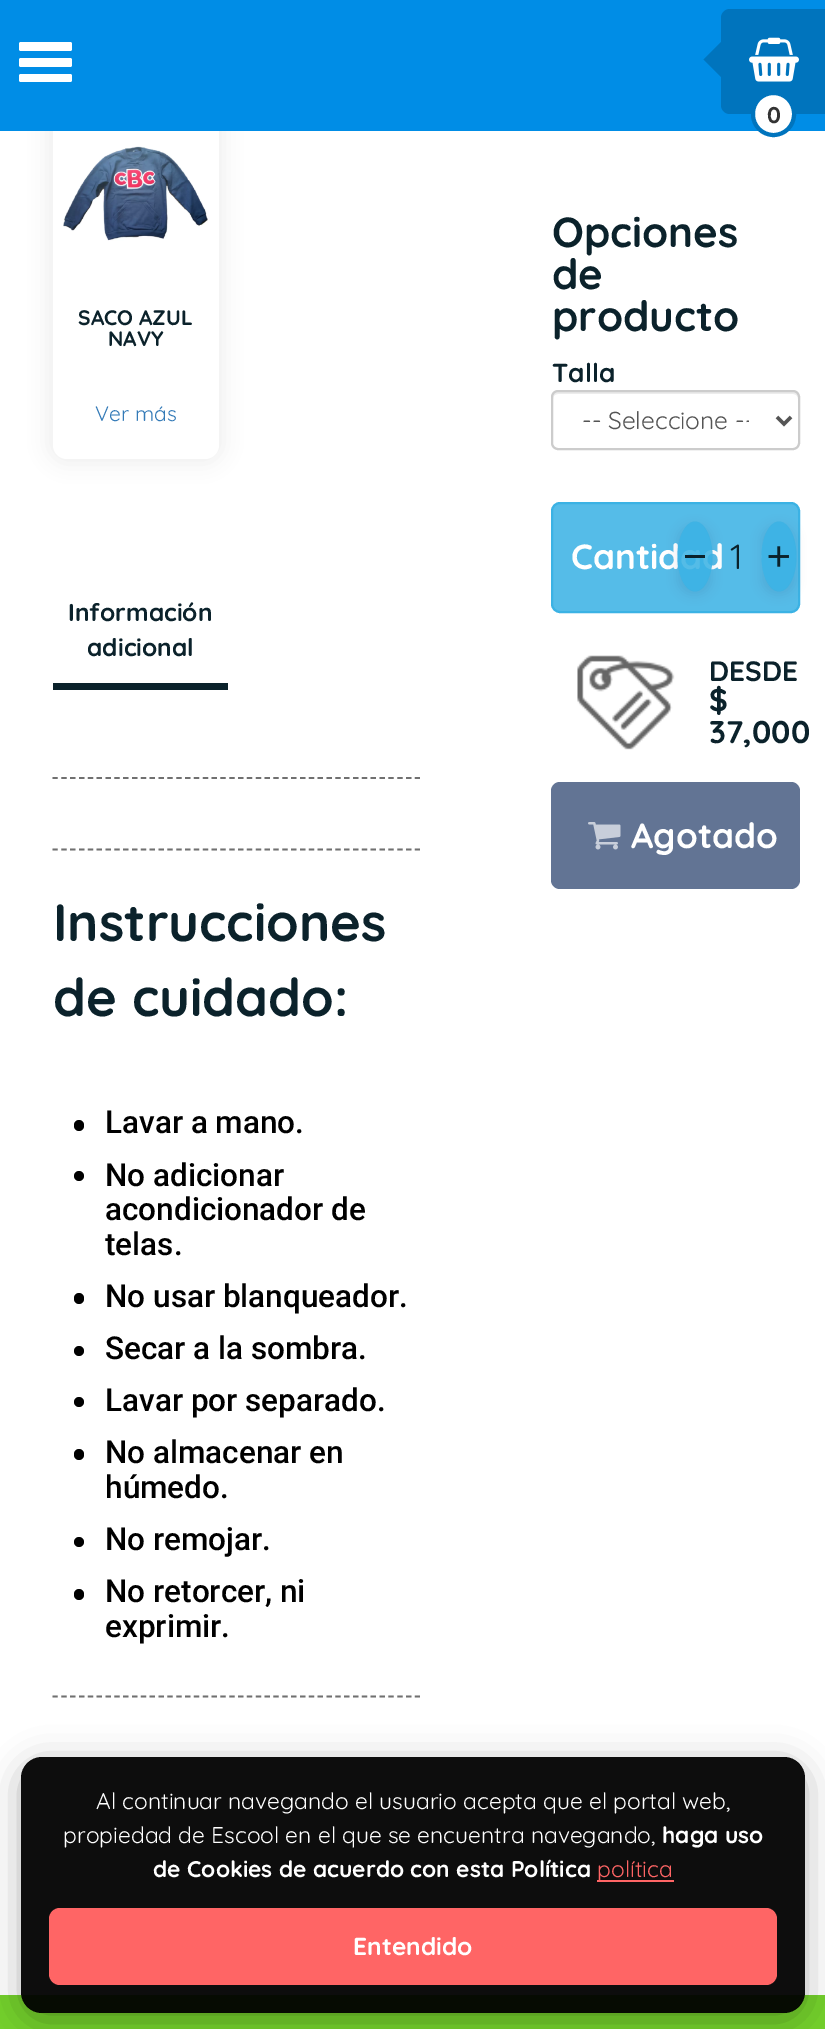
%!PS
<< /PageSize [825 2029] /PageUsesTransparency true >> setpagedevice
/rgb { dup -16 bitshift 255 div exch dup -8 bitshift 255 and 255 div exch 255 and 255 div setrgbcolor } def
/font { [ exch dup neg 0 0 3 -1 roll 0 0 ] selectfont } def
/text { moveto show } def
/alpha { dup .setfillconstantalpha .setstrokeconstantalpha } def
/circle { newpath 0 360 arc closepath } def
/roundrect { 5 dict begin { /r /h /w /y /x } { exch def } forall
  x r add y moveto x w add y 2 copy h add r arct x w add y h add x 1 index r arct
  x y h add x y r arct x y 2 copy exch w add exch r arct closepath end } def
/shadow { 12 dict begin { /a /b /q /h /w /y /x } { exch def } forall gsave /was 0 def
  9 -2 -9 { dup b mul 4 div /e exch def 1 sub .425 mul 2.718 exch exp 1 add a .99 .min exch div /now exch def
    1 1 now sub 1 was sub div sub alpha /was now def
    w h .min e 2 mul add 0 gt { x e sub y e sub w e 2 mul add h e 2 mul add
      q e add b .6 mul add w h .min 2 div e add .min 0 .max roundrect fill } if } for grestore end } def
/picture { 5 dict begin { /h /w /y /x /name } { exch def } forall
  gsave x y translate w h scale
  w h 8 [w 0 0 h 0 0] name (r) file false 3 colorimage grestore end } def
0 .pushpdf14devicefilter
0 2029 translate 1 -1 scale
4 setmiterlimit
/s1 { /Quicksand-Bold 22.75 font 16#333333 rgb } def
/s2 { /Quicksand-Bold 21 font 16#0B222B rgb } def
/s3 { /Quicksand-Regular 21 font 16#337AB7 rgb } def
/s4 { /Quicksand-Bold 24.5 font 16#0B222B rgb } def
/s5 { /Quicksand-Bold 52.5 font 16#0B222B rgb } def
/s6 { /Roboto-Medium 31.5 font 16#000000 rgb } def
/s7 { /Quicksand-Bold 42 font 16#0B222B rgb } def
/s8 { /Quicksand-Bold 26 font 16#0B222B rgb } def
/s9 { /Quicksand-Regular 24.5 font 16#555555 rgb } def
/s10 { /Quicksand-Bold 35 font 16#FFFFFF rgb } def
/s11 { /Quicksand-Regular 35 font 16#0B222B rgb } def
/s12 { /Quicksand-Bold 28 font 16#0B222B rgb } def
/s13 { /Quicksand-Bold 31.5 font 16#0B222B rgb } def
/s14 { /Quicksand-Regular 22.75 font 16#FFFFFF rgb } def
/s15 { /Quicksand-Bold 22.75 font 16#FFFFFF rgb } def
/s16 { /Quicksand-Regular 22.75 font 16#FF6565 rgb } def
/s17 { /Quicksand-Bold 24.5 font 16#FFFFFF rgb } def
16#FFFFFF rgb
0 0 825 2029 rectfill
16#707070 rgb
47 107 177 357 19 9 0.1 shadow
16#FFFFFF rgb
53 112 166 347 14 roundrect fill
16#008DE6 rgb
0 0 825 131 rectfill
16#FFFFFF rgb
19 42 53 9 2 roundrect fill
19 58 53 9 2 roundrect fill
19 74 53 8 2 roundrect fill
16#0074BD rgb
730 9 moveto 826 9 lineto 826 114 lineto 730 114 lineto 725 114 721 110 721 105 curveto 721 18 lineto 721 13 725 9 730 9 curveto closepath fill
721 42 moveto 721 77 lineto 703.5 59.5 lineto closepath fill
(pic1.raw) 749 37 50 45 picture
16#FFFFFF rgb
753 93 41 42 20.5 roundrect gsave fill grestore
16#0074BD rgb
4 setlinewidth
stroke
s1
(0) 767 123 text
(pic2.raw) 63 146 145 95 picture
s2
(SACO AZUL) 78 325 text
(NAVY) 108 346 text
s3
(Ver más) 95 421 text
16#0B222B rgb
53 683 175 7 rectfill
s4
(Información) 68 621 text
(adicional) 87 656 text
16#707070 rgb
1.8 setlinewidth
[5.25 3.59] 0 setdash
52.5 778 moveto 420 778 lineto stroke
52.5 849.5 moveto 420 849.5 lineto stroke
52.5 1696.5 moveto 420 1696.5 lineto stroke
s5
(Instrucciones) 53 941 text
(de cuidado:) 53 1016 text
16#000000 rgb
74 1120 10 11 5 roundrect fill
s6
(Lavar a mano.) 105 1133 text
79 1176 5 circle fill
(No adicionar) 105 1186 text
(acondicionador de) 105 1220 text
(telas.) 105 1255 text
74 1293 10 11 5 roundrect fill
(No usar blanqueador.) 105 1307 text
79 1351 5 circle fill
(Secar a la sombra.) 105 1359 text
79 1402 5 circle fill
(Lavar por separado.) 105 1411 text
74 1449 10 11 5 roundrect fill
(No almacenar en) 105 1463 text
(húmedo.) 105 1498 text
79 1542 5 circle fill
(No remojar.) 105 1550 text
74 1589 10 11 5 roundrect fill
(No retorcer, ni) 105 1602 text
(exprimir.) 105 1637 text
s7
(Opciones) 552 247 text
(de) 552 289 text
(producto) 552 331 text
s8
(Talla) 552 382 text
16#ECECEC rgb
558 394 moveto 793 394 lineto 796 394 798 396 798 399 curveto 798 396 798 393 794 392 curveto 557 392 lineto 553 393 553 396 553 399 curveto 553 396 555 394 558 394 curveto closepath fill
16#CCCCCC rgb
2 setlinewidth
[] 0 setdash
552 391 247 58 6 roundrect stroke
16#555555 rgb
3.5 setlinewidth
777 417 moveto 784 424 lineto 791 417 lineto stroke
gsave
581 403 168 35 rectclip
s9
(-- Seleccione --) 582 429 text
grestore
16#55BCE8 rgb
552 503 247 109 8 roundrect gsave fill grestore
16#3BB2E4 rgb
2 setlinewidth
stroke
s10
(Cantidad) 571 569 text
gsave
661 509 moveto 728 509 lineto 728 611 lineto 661 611 lineto closepath 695 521.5 moveto 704.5 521.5 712 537 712 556.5 curveto 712 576 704.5 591.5 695 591.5 curveto 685 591.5 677 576 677 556.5 curveto 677 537 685 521.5 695 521.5 curveto closepath eoclip newpath
16#32325D rgb
677 525 35 70 17.5 5 0.1 shadow
grestore
0.87 alpha
16#3BB2E4 rgb
695 521.5 moveto 704.5 521.5 712.5 537 712.5 556.5 curveto 712.5 576 704.5 591.5 695 591.5 curveto 685.5 591.5 677.5 576 677.5 556.5 curveto 677.5 537 685.5 521.5 695 521.5 curveto closepath fill
1 alpha
16#0B222B rgb
685 555 20 3 rectfill
s11
(1) 730 569 text
gsave
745 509 moveto 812 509 lineto 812 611 lineto 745 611 lineto closepath 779 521.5 moveto 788.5 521.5 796 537 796 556.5 curveto 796 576 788.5 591.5 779 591.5 curveto 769 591.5 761 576 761 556.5 curveto 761 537 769 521.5 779 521.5 curveto closepath eoclip newpath
16#32325D rgb
761 525 35 70 17.5 5 0.1 shadow
grestore
0.87 alpha
16#3BB2E4 rgb
779 521.5 moveto 788.5 521.5 796.5 537 796.5 556.5 curveto 796.5 576 788.5 591.5 779 591.5 curveto 769.5 591.5 761.5 576 761.5 556.5 curveto 761.5 537 769.5 521.5 779 521.5 curveto closepath fill
1 alpha
(pic3.raw) 768 546 21 21 picture
(pic4.raw) 577 655 98 95 picture
s12
(DESDE) 709 681 text
s13
($) 709 711 text
(37,000) 709 743 text
16#627494 rgb
551 782 249 107 9 roundrect fill
(pic5.raw) 588 822 33 28 picture
s10
(Agotado) 631 848 text
16#74D12C rgb
0 1995 825 34 rectfill
gsave
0 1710 moveto 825 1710 lineto 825 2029 lineto 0 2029 lineto closepath 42 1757 moveto 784 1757 lineto 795.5 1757 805 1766.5 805 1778 curveto 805 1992 lineto 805 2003.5 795.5 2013 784 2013 curveto 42 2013 lineto 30.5 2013 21 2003.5 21 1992 curveto 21 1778 lineto 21 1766.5 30.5 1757 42 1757 curveto closepath eoclip newpath
16#000000 rgb
21 1764 784 256 21 17.5 0.3 shadow
grestore
0.95 alpha
16#000000 rgb
21 1757 784 256 21 roundrect fill
1 alpha
s14
(Al continuar navegando el usuario acepta que el portal web,) 96 1809 text
(propiedad de Escool en el que se encuentra navegando,) 63 1843 text
s15
(haga uso) 662 1843 text
(de Cookies de acuerdo con esta Política) 153 1877 text
16#FF6565 rgb
597 1880 77 2 rectfill
s16
(política) 597 1877 text
49 1908 728 77 11 roundrect fill
s17
(Entendido) 353 1955 text
.poppdf14devicefilter showpage
